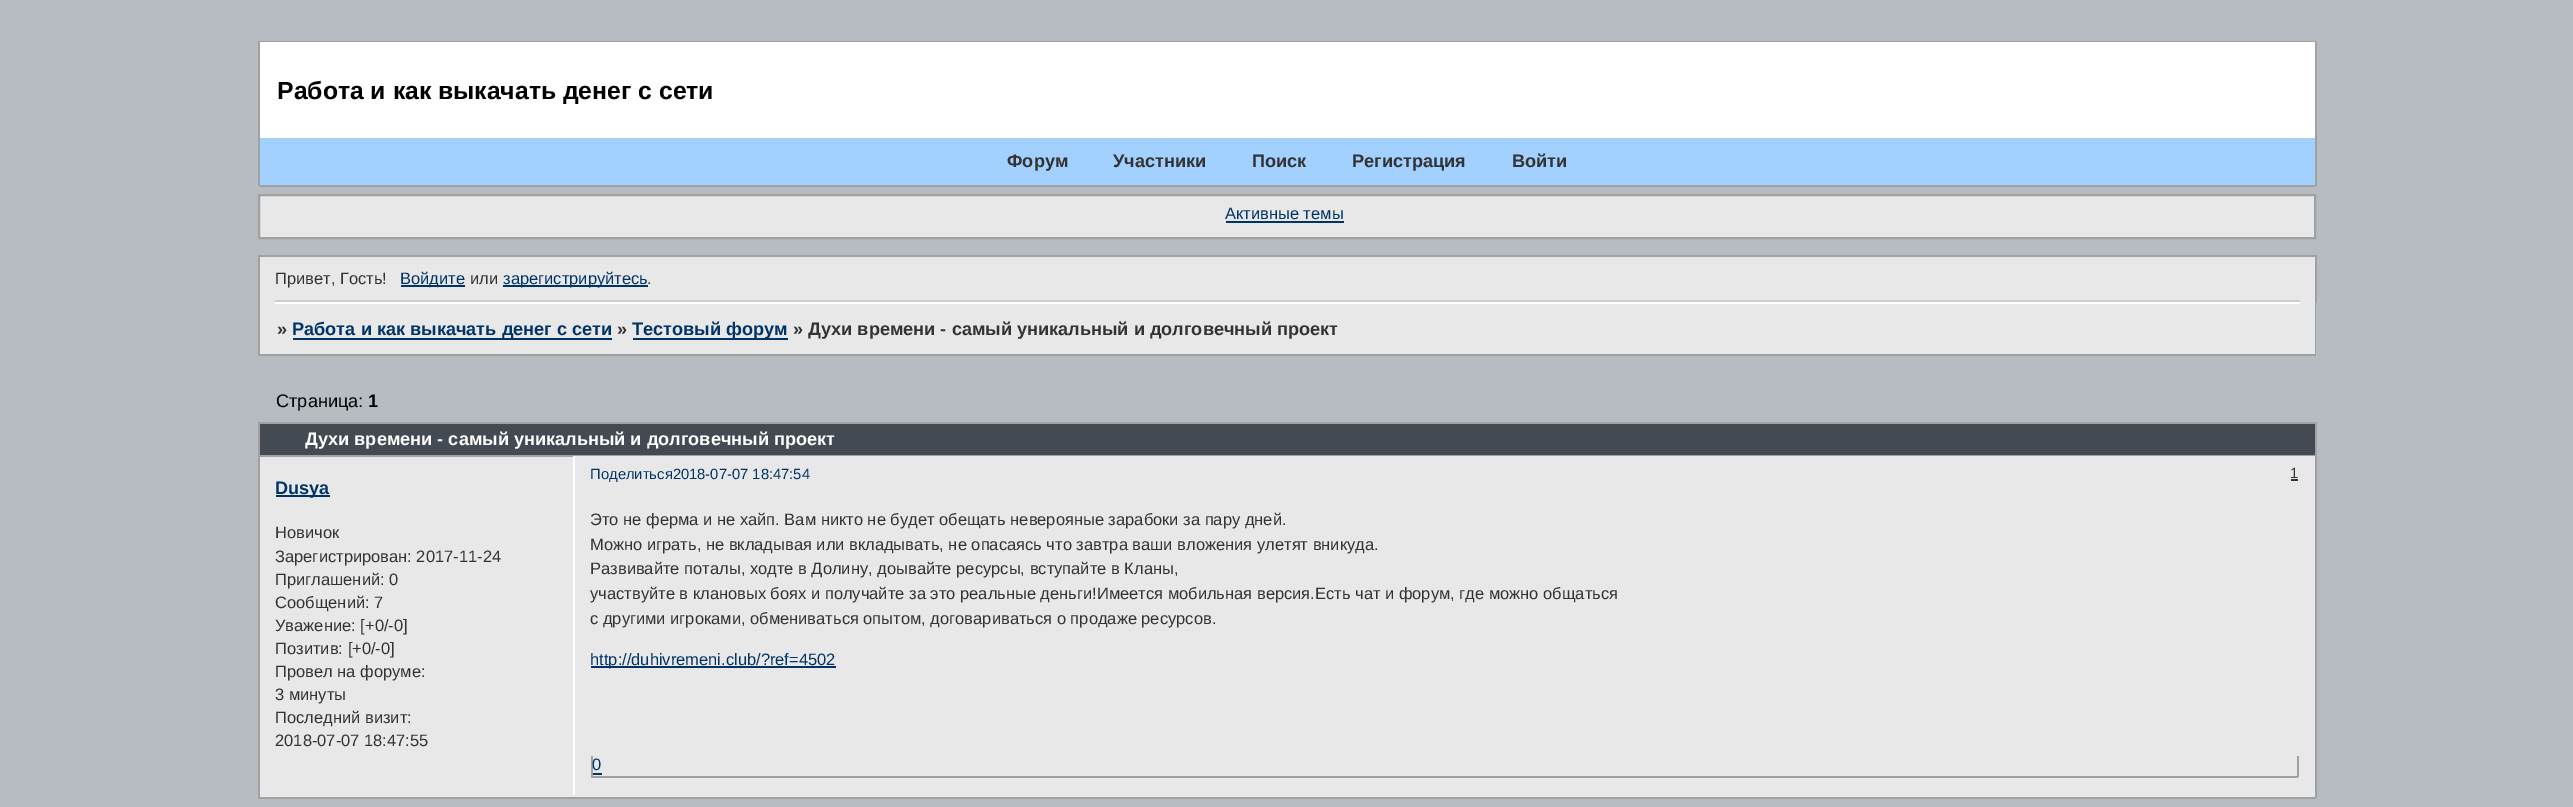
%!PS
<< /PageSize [2573 807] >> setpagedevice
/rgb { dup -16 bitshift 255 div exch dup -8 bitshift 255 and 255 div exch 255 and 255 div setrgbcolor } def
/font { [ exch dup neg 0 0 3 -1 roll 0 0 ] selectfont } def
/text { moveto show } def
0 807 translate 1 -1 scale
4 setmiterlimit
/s1 { /LiberationSans-Bold 24.75 font 16#000000 rgb } def
/s2 { /LiberationSans-Bold 18.15 font 16#333333 rgb } def
/s3 { /LiberationSans-Regular 16.5 font 16#003366 rgb } def
/s4 { /LiberationSans-Regular 16.5 font 16#333333 rgb } def
/s5 { /LiberationSans-Bold 18.15 font 16#003366 rgb } def
/s6 { /LiberationSans-Regular 18.15 font 16#000000 rgb } def
/s7 { /LiberationSans-Bold 18.15 font 16#000000 rgb } def
/s8 { /LiberationSans-Bold 18.15 font 16#FFFFFF rgb } def
/s9 { /LiberationSans-Regular 14.8 font 16#003366 rgb } def
/s10 { /LiberationSans-Regular 14.8 font 16#333333 rgb } def
16#B7BCC3 rgb
0 0 2573 807 rectfill
16#A1A1A1 rgb
258 41 2058 1 rectfill
2315 41 2 145 rectfill
258 41 2 145 rectfill
16#FFFFFF rgb
260 42 2055 96 rectfill
s1
(Работа и как выкачать денег с сети) 277 99 text
16#A2D0FF rgb
260 138 2055 47 rectfill
16#A1A1A1 rgb
260 185 2055 2 rectfill
s2
(Форум) 1007 167 text
(Участники) 1113 167 text
(Поиск) 1252 167 text
(Регистрация) 1352 167 text
(Войти) 1512 167 text
16#E8E8E8 rgb
259 195 moveto 2315 195 lineto 2315 238 lineto 259 238 lineto closepath gsave fill grestore
16#A1A1A1 rgb
2 setlinewidth
stroke
s3
(Активные темы) 1225 219 text
1226 221 118 2 rectfill
16#E8E8E8 rgb
260 257 2055 97 rectfill
16#A1A1A1 rgb
258 255 2058 2 rectfill
2315 255 2 48 rectfill
258 255 2 48 rectfill
s4
(Привет, Гость!) 275 284 text
16#003366 rgb
401 285 64 2 rectfill
(Войдите) 400 284 text
s4
(или) 470 284 text
16#003366 rgb
503 285 145 2 rectfill
(зарегистрируйтесь) 503 284 text
s4
(.) 647 284 text
16#CCCCCC rgb
275 300 2025 2 rectfill
16#FFFFFF rgb
275 302 2025 2 rectfill
16#A1A1A1 rgb
2315 300 1 56 rectfill
258 354 2058 2 rectfill
258 300 2 56 rectfill
s2
(») 277 335 text
16#003366 rgb
293 338 319 2 rectfill
(Работа и как выкачать денег с сети) 292 335 text
s2
(») 617 335 text
16#003366 rgb
633 338 155 2 rectfill
(Тестовый форум) 632 335 text
s2
(» Духи времени - самый уникальный и долговечный проект) 793 335 text
s6
(Страница:) 276 407 text
s7
(1) 368 407 text
16#434A52 rgb
260 424 2055 31 rectfill
16#A1A1A1 rgb
258 422 2058 2 rectfill
2315 422 2 33 rectfill
258 422 2 33 rectfill
s8
(Духи времени - самый уникальный и долговечный проект) 305 445 text
16#E8E8E8 rgb
260 457 313 34 rectfill
16#A1A1A1 rgb
258 455 2058 2 rectfill
2315 455 2 343 rectfill
258 455 2 37 rectfill
16#E8E8E8 rgb
575 456 1740 35 rectfill
16#FFFFFF rgb
573 456 2 36 rectfill
s9
(Поделиться2018-07-07 18:47:54) 590 479 text
s10
(1) 2290 478 text
2291 479 7 2 rectfill
16#E8E8E8 rgb
260 491 2055 306 rectfill
16#A1A1A1 rgb
258 797 2058 2 rectfill
258 491 2 307 rectfill
16#003366 rgb
276 495 54 2 rectfill
s5
(Dusya) 275 494 text
s4
(Новичок) 275 538 text
(Зарегистрирован: 2017-11-24) 275 562 text
(Приглашений: 0) 275 585 text
(Сообщений: 7) 275 608 text
(Уважение: [+0/-0]) 275 631 text
(Позитив: [+0/-0]) 275 654 text
(Провел на форуме:) 275 677 text
(3 минуты) 275 700 text
(Последний визит:) 275 723 text
(2018-07-07 18:47:55) 275 746 text
16#FFFFFF rgb
573 491 2 304 rectfill
s4
(Это не ферма и не хайп. Вам никто не будет обещать неверояные зарабоки за пару дней.) 590 525 text
(Можно играть, не вкладывая или вкладывать, не опасаясь что завтра ваши вложения улетят вникуда.) 590 550 text
(Развивайте поталы, ходте в Долину, доывайте ресурсы, вступайте в Кланы,) 590 574 text
(участвуйте в клановых боях и получайте за это реальные деньги!Имеется мобильная версия.Есть чат и форум, где можно общаться) 590 599 text
(с другими игроками, обмениваться опытом, договариваться о продаже ресурсов.) 590 624 text
16#003366 rgb
591 666 245 2 rectfill
(http://duhivremeni.club/?ref=4502) 590 665 text
16#A1A1A1 rgb
2297 756 2 21 rectfill
591 776 1707 2 rectfill
591 756 2 21 rectfill
s3
(0) 592 770 text
593 773 9 2 rectfill
showpage
